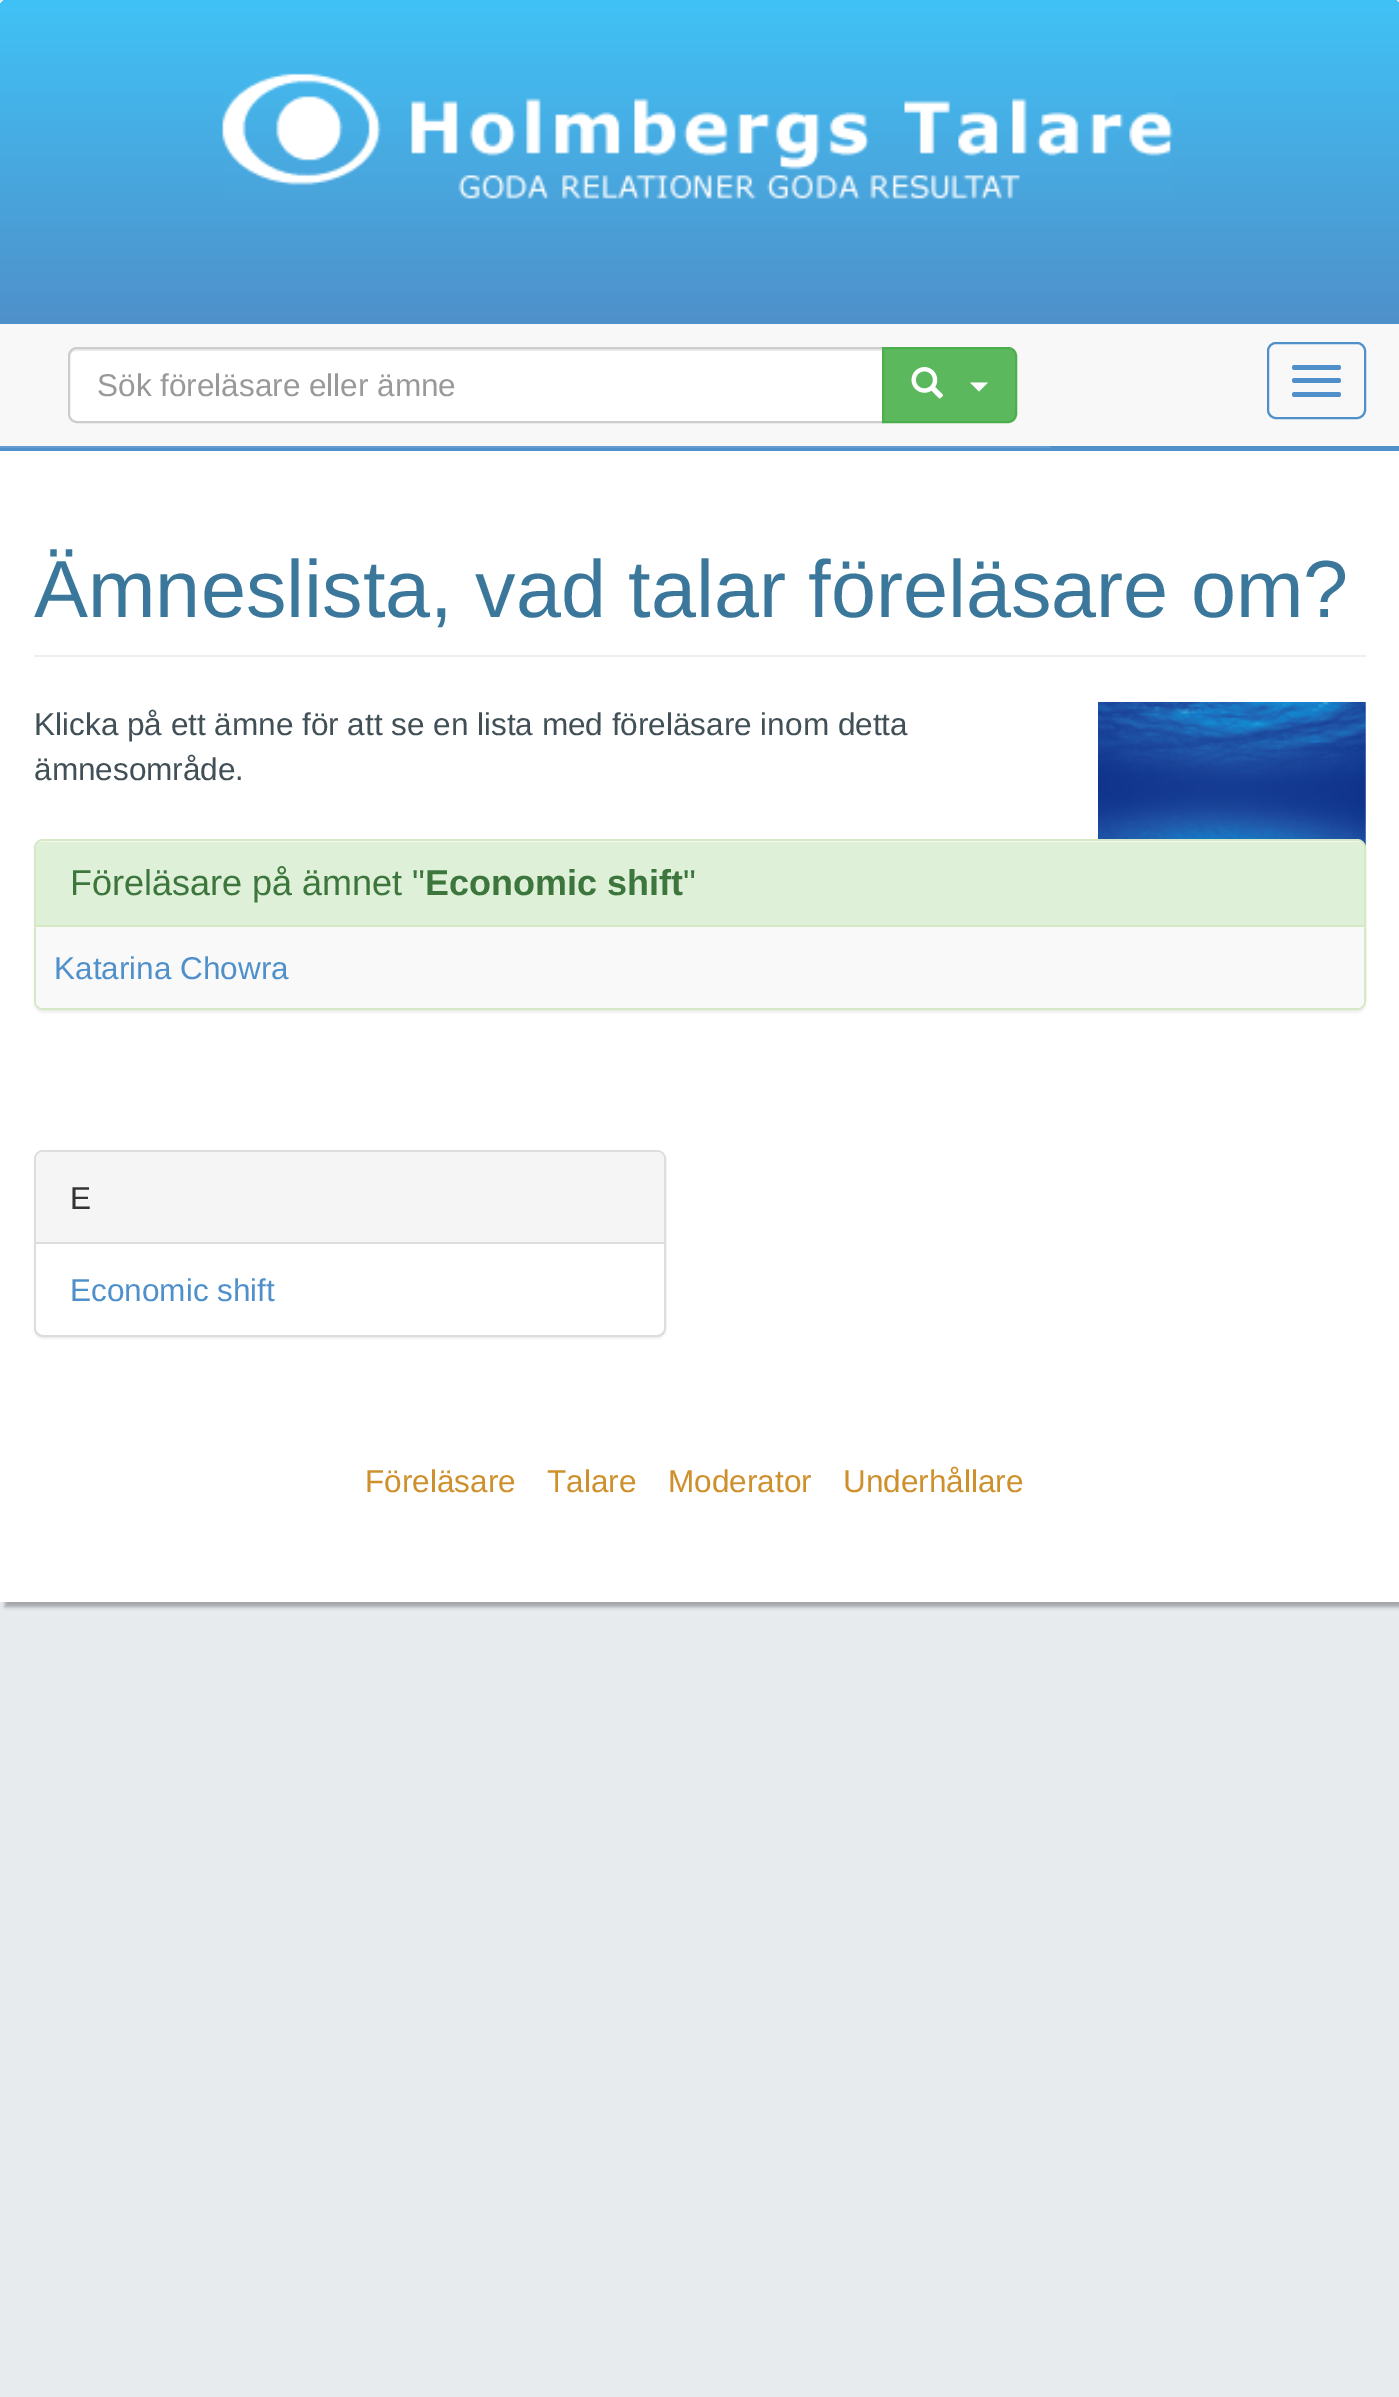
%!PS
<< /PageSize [1399 2397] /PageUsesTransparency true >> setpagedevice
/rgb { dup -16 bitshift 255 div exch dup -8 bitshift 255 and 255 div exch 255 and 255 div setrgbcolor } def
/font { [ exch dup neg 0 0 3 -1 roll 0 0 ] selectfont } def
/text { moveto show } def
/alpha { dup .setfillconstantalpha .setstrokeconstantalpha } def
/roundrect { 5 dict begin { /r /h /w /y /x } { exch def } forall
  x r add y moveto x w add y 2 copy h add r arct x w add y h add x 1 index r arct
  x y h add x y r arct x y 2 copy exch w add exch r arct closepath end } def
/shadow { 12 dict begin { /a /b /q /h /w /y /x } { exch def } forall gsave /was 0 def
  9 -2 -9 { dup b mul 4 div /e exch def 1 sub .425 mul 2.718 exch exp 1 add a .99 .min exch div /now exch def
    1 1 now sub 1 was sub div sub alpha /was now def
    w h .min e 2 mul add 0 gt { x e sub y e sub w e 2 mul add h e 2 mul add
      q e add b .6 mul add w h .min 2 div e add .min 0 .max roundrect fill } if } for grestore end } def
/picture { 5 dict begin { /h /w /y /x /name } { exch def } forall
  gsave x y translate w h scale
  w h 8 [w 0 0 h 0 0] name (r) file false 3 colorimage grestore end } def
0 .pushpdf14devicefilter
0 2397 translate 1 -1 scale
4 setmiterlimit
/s1 { /LiberationSans-Regular 31.5 font 16#999999 rgb } def
/s2 { /LiberationSans-Regular 81 font 16#3B779B rgb } def
/s3 { /LiberationSans-Regular 31.5 font 16#414F56 rgb } def
/s4 { /LiberationSans-Regular 36 font 16#3C763D rgb } def
/s5 { /LiberationSans-Bold 36 font 16#3C763D rgb } def
/s6 { /LiberationSans-Regular 31.5 font 16#4F90CA rgb } def
/s7 { /LiberationSans-Regular 31.5 font 16#333333 rgb } def
/s8 { /LiberationSans-Regular 31.5 font 16#CE902C rgb } def
16#E7EBEE rgb
0 0 1399 2397 rectfill
gsave 7 0 moveto 1393 0 lineto 1397 0 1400 3 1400 7 curveto 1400 324 lineto 0 324 lineto 0 7 lineto 0 3 3 0 7 0 curveto closepath clip newpath
<< /ShadingType 2 /ColorSpace /DeviceRGB /Coords [700 0 700 324] /Extend [true true] /Function << /FunctionType 2 /Domain [0 1] /C0 [0.251 0.761 0.965] /C1 [0.31 0.565 0.792] /N 1 >> >> shfill grestore
(pic1.raw) 222 73 951 126 picture
16#F8F8F8 rgb
0 324 1399 122 rectfill
16#000000 rgb
5 455 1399 1152 0 2 0.3 shadow
16#4F90CA rgb
0 446 1399 5 rectfill
16#619BCF rgb
0 446 moveto 0 448 lineto 1051 448 lineto 1051 326 lineto 1051 446 lineto closepath fill
16#FFFFFF rgb
77 347 moveto 884 347 lineto 884 423 lineto 77 423 lineto 72 423 68 419 68 414 curveto 68 356 lineto 68 351 72 347 77 347 curveto closepath fill
16#ECECEC rgb
76 351 moveto 882 351 lineto 882 349 lineto 77 349 lineto 72 349 70 354 70 358 curveto 70 354 73 351 76 351 curveto closepath fill
16#CCCCCC rgb
2 setlinewidth
77 348 moveto 883 348 lineto 883 422 lineto 77 422 lineto 72.5 422 69 418.5 69 414 curveto 69 356 lineto 69 351.5 72.5 348 77 348 curveto closepath stroke
s1
(Sök föreläsare eller ämne) 97 396 text
16#5CB85C rgb
883 348 moveto 1008 348 lineto 1012.5 348 1016 351.5 1016 356 curveto 1016 414 lineto 1016 418.5 1012.5 422 1008 422 curveto 883 422 lineto closepath gsave fill grestore
16#4CAE4C rgb
stroke
(pic2.raw) 911 367 32 32 picture
16#FFFFFF rgb
970 382.5 moveto 988 382.5 lineto 979 391.5 lineto closepath fill
16#4F90CA rgb
1268 343 97 75 8 roundrect stroke
1292 365 49 5 2.5 roundrect fill
1292 378 49 5 2.5 roundrect fill
1292 392 49 5 2.5 roundrect fill
16#FFFFFF rgb
0 451 1399 1151 rectfill
16#EEEEEE rgb
34 655 1332 2 rectfill
s2
(Ämneslista, vad talar föreläsare om?) 34 617 text
s3
(Klicka på ett ämne för att se en lista med föreläsare inom detta) 34 735 text
(ämnesområde.) 34 780 text
(pic3.raw) 1098 702 268 146 picture
16#000000 rgb
34 842 1332 171 9 1 0.05 shadow
16#FFFFFF rgb
35 840 1330 169 8 roundrect gsave fill grestore
16#D6E9C6 rgb
stroke
16#DFF0D8 rgb
43 842 moveto 1357 842 lineto 1361 842 1364 845 1364 849 curveto 1364 927 lineto 36 927 lineto 36 849 lineto 36 845 39 842 43 842 curveto closepath fill
16#D6E9C6 rgb
36 925 1328 2 rectfill
s4
(Föreläsare på ämnet ") 70 895 text
s5
(Economic shift) 425 895 text
s4
(") 683 895 text
16#F9F9F9 rgb
36 927 moveto 1364 927 lineto 1364 1001 lineto 1364 1005 1361 1008 1357 1008 curveto 43 1008 lineto 39 1008 36 1005 36 1001 curveto closepath fill
s6
(Katarina Chowra) 54 979 text
16#000000 rgb
34 1152 632 187 9 1 0.05 shadow
16#FFFFFF rgb
35 1151 630 185 8 roundrect gsave fill grestore
16#DDDDDD rgb
stroke
16#F5F5F5 rgb
43 1152 moveto 657 1152 lineto 661 1152 664 1155 664 1159 curveto 664 1244 lineto 36 1244 lineto 36 1159 lineto 36 1155 39 1152 43 1152 curveto closepath fill
16#DDDDDD rgb
36 1242 628 2 rectfill
s7
(E) 70 1209 text
16#FFFFFF rgb
36 1244 moveto 664 1244 lineto 664 1327 lineto 664 1331 661 1334 657 1334 curveto 43 1334 lineto 39 1334 36 1331 36 1327 curveto closepath fill
s6
(Economic shift) 70 1301 text
s8
(Föreläsare) 365 1492 text
(Talare) 547 1492 text
(Moderator) 668 1492 text
(Underhållare) 843 1492 text
.poppdf14devicefilter showpage
